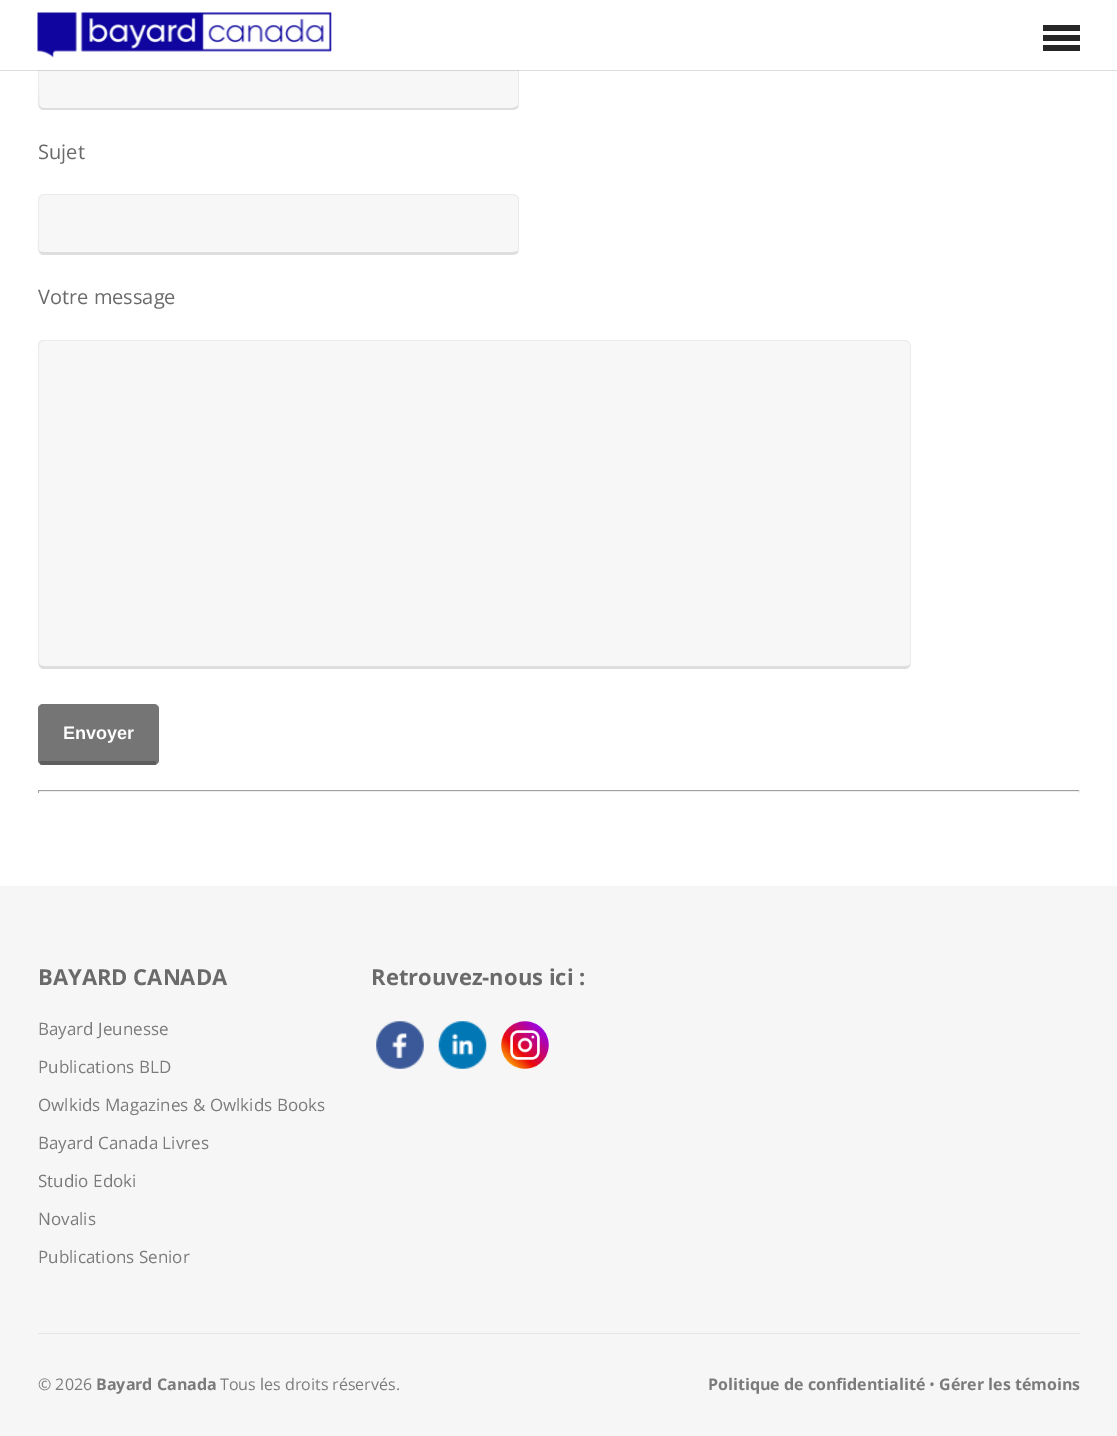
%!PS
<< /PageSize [1117 1436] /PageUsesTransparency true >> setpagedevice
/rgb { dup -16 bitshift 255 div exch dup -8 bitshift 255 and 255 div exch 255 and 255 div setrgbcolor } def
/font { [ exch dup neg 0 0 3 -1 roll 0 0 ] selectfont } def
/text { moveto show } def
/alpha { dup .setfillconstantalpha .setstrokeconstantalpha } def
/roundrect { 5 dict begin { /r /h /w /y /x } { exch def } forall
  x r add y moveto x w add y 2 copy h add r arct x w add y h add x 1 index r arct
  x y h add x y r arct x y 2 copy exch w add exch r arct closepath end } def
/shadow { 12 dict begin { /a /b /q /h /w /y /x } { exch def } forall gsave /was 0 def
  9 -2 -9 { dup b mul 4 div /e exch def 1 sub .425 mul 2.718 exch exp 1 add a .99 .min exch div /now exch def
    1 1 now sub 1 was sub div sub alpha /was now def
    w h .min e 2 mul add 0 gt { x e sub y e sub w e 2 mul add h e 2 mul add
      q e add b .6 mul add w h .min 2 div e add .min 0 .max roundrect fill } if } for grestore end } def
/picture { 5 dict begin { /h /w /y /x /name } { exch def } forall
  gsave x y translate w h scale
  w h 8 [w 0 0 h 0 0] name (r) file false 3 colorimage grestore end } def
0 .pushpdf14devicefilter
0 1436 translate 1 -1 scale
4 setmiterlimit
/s1 { /OpenSans-Regular 20 font 16#6A6A6A rgb } def
/s2 { /LiberationSans-Bold 18 font 16#FFFFFF rgb } def
/s3 { /OpenSans-Bold 22 font 16#6A6A6A rgb } def
/s4 { /OpenSans-Regular 17 font 16#7B7B7B rgb } def
/s5 { /OpenSans-Regular 16 font 16#7B7B7B rgb } def
/s6 { /OpenSans-Bold 16 font 16#7B7B7B rgb } def
16#FFFFFF rgb
0 0 1117 1436 rectfill
16#F7F7F7 rgb
38 49 481 61 6 roundrect fill
0.05 alpha
16#000000 rgb
517 51 moveto 519 53 lineto 519 106 lineto 518 108 lineto 517 106 lineto 518 104 lineto 518 54 lineto 516 51 lineto closepath fill
0.1 alpha
44 110 moveto 512 110 lineto 514 110 516 109 518 108 curveto 517 106 lineto 516 107 514 108 512 108 curveto 44 108 lineto 42 108 40 107 40 106 curveto 39 107 lineto 40 109 42 110 44 110 curveto closepath fill
0.05 alpha
40 51 moveto 38 54 lineto 38 96 lineto 38 98 37 104 39 107 curveto 40 106 lineto 39 104 38 58 39 54 curveto 40 52 lineto closepath fill
1 alpha
0 0 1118 70 0 0.5 0.5 shadow
16#FFFFFF rgb
0 0 1117 70 rectfill
(pic1.raw) 37 12 295 46 picture
16#272727 rgb
1043 25 37 6 rectfill
1043 45 37 6 rectfill
1043 35 37 6 rectfill
s1
(Sujet) 38 159 text
16#F7F7F7 rgb
38 194 481 61 6 roundrect fill
16#EBEBEB rgb
44 194 moveto 42 194 41 195 40 196 curveto 40 197 lineto 41 196 42 195 44 195 curveto 512 195 lineto 514 195 515 196 516 196 curveto 517 196 lineto 516 195 514 194 512 194 curveto closepath fill
0.05 alpha
16#000000 rgb
517 196 moveto 519 198 lineto 519 251 lineto 518 253 lineto 517 251 lineto 518 250 518 250 518 249 curveto 518 200 lineto 518 198 517 197 516 196 curveto closepath fill
0.1 alpha
44 255 moveto 512 255 lineto 514 255 516 254 518 253 curveto 517 251 lineto 516 252 514 252 512 252 curveto 44 252 lineto 42 252 40 252 40 251 curveto 39 252 lineto 40 254 42 255 44 255 curveto closepath fill
0.05 alpha
40 196 moveto 38 199 lineto 38 241 lineto 38 243 37 249 39 252 curveto 40 251 lineto 39 249 lineto 39 199 lineto 40 197 lineto closepath fill
1 alpha
s1
(Votre message) 38 304 text
16#F7F7F7 rgb
38 340 873 329 6 roundrect fill
16#EBEBEB rgb
44 340 moveto 42 340 40 341 39 342 curveto 40 343 lineto 41 342 42 341 44 341 curveto 905 341 lineto 907 341 908 342 909 343 curveto 909 342 lineto 908 341 907 340 905 340 curveto closepath fill
909 342 moveto 910 343 911 345 911 346 curveto 911 662 lineto 911 664 911 665 910 666 curveto 909 665 lineto 910 662 lineto 910 346 lineto 910 345 910 343 909 343 curveto closepath fill
0.1 alpha
16#000000 rgb
42 669 moveto 41 668 40 667 39 666 curveto 40 664 lineto 40 666 42 666 44 666 curveto 905 666 lineto 907 666 908 666 909 665 curveto 910 666 lineto 909 667 908 668 907 669 curveto closepath fill
0.05 alpha
39 342 moveto 38 343 38 345 38 346 curveto 38 662 lineto 39 666 lineto 40 664 lineto 39 662 lineto 39 346 lineto 40 343 lineto closepath fill
1 alpha
16#757575 rgb
38 704 121 61 5 roundrect fill
0.2 alpha
16#000000 rgb
40 761 116 4 rectfill
1 alpha
s2
(Envoyer) 63 739 text
16#9F9F9F rgb
38 790 1042 1 rectfill
16#EEEEEE rgb
1079 790 1 3 rectfill
38 791 1042 1 rectfill
16#9F9F9F rgb
38 790 1 3 rectfill
16#F6F6F6 rgb
0 886 1117 550 rectfill
s3
(BAYARD CANADA) 38 985 text
s4
(Bayard Jeunesse) 38 1035 text
(Publications BLD) 38 1073 text
(Owlkids Magazines & Owlkids Books) 38 1111 text
(Bayard Canada Livres) 38 1149 text
(Studio Edoki) 38 1187 text
(Novalis) 38 1225 text
(Publications Senior) 38 1263 text
s3
(Retrouvez-nous ici :) 371 985 text
(pic2.raw) 376 1021 48 48 picture
(pic3.raw) 438 1021 49 48 picture
(pic4.raw) 501 1021 48 48 picture
16#E5E5E5 rgb
38 1333 1042 1 rectfill
s5
(© 2026) 38 1390 text
s6
(Bayard Canada) 96 1390 text
s5
(Tous les droits réservés.) 220 1390 text
s6
(Politique de confidentialité) 708 1390 text
s5
(•) 929 1390 text
s6
(Gérer les témoins) 939 1390 text
.poppdf14devicefilter showpage
